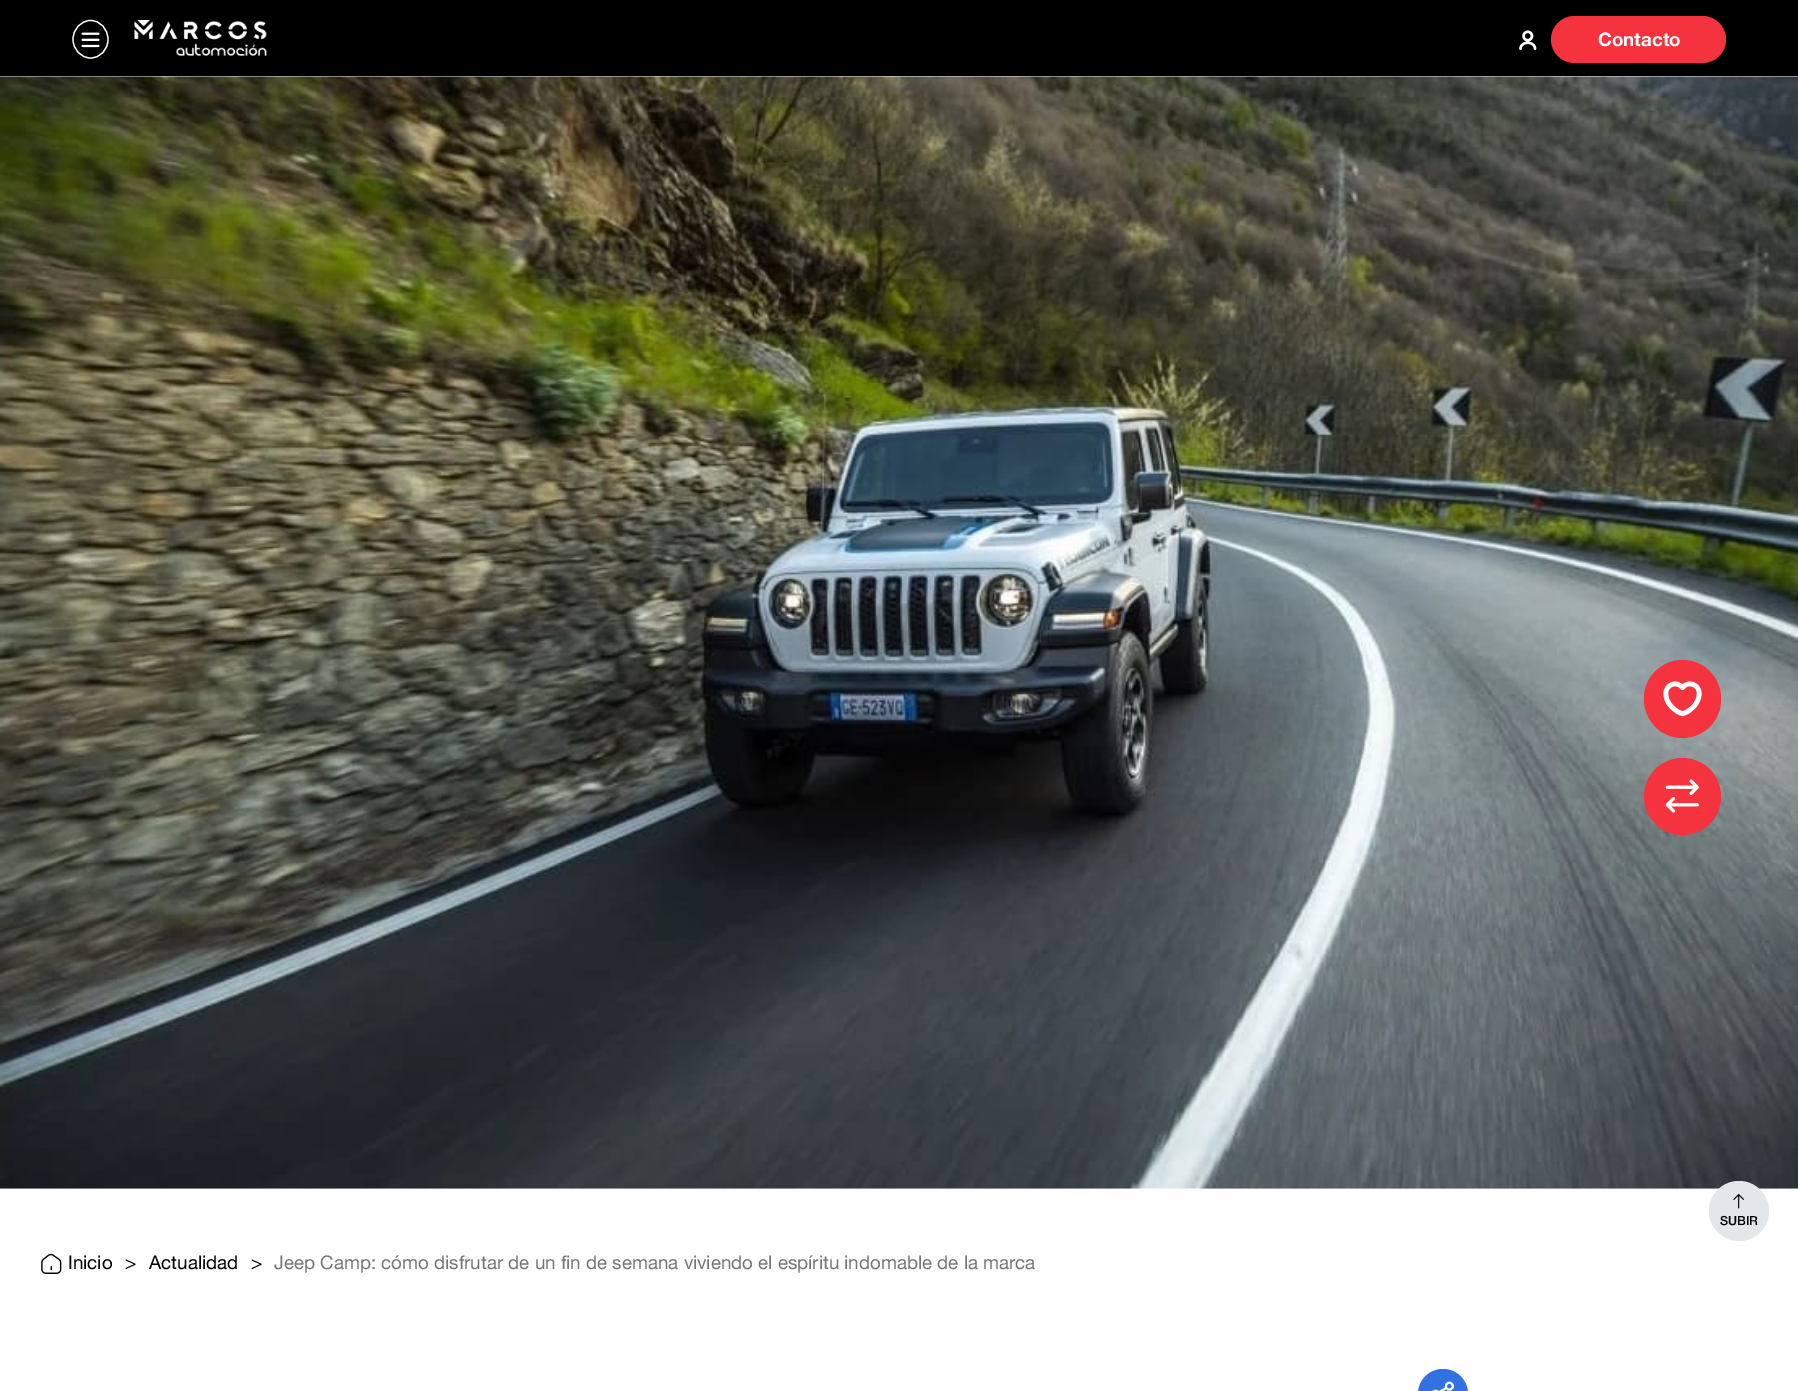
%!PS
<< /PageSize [1798 1391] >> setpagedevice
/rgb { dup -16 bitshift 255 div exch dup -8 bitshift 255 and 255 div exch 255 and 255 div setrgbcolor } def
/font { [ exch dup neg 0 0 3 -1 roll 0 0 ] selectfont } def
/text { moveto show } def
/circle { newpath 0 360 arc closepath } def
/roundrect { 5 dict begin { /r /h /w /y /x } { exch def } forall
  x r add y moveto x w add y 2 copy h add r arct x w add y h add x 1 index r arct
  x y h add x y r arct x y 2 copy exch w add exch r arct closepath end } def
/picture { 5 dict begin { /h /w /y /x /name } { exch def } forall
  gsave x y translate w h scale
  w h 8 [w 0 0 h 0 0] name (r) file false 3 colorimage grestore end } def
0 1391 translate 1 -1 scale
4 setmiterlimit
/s1 { /HelveticaNeue-Bold 18.75 font 16#FFFFFF rgb } def
/s2 { /HelveticaNeue-Medium 12.5 font 16#000000 rgb } def
/s3 { /HelveticaNeue-Regular 18.75 font 16#000000 rgb } def
/s4 { /HelveticaNeue-Regular 18.75 font 16#747677 rgb } def
16#FFFFFF rgb
0 0 1798 1391 rectfill
16#000000 rgb
0 0 1798 76 rectfill
16#FFFFFF rgb
1.2 setlinewidth
90.5 20.5 moveto 100.5 20.5 108 29 108 39.5 curveto 108 49.5 100.5 58 90.5 58 curveto 81 58 73 49.5 73 39.5 curveto 73 29 81 20.5 90.5 20.5 curveto closepath stroke
(pic1.raw) 81 32 19 16 picture
(pic2.raw) 134 20 133 36 picture
(pic3.raw) 1519 30 18 20 picture
16#F5333F rgb
1551 16 175 47 23.5 roundrect fill
s1
(Contacto) 1598 46 text
(pic7.raw) 0 76 1798 1113 picture
16#F5333F rgb
1644 660 77 78 38.5 roundrect fill
(pic4.raw) 1663 681 39 36 picture
1682.5 796.5 38.5 circle fill
(pic5.raw) 1665 779 34 34 picture
16#E2E7E9 rgb
1739 1211 30 circle fill
(pic6.raw) 1733 1194 11 15 picture
s2
(SUBIR) 1720 1225 text
(pic8.raw) 41 1253 21 21 picture
s3
(Inicio) 68 1269 text
(>) 125 1269 text
(Actualidad) 149 1269 text
(>) 251 1269 text
s4
(Jeep Camp: cómo disfrutar de un fin de semana viviendo el espíritu indomable de la marca) 274 1269 text
16#3172E0 rgb
1418 1369 50 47 25 roundrect fill
(pic9.raw) 1432 1381 22 10 picture
showpage
